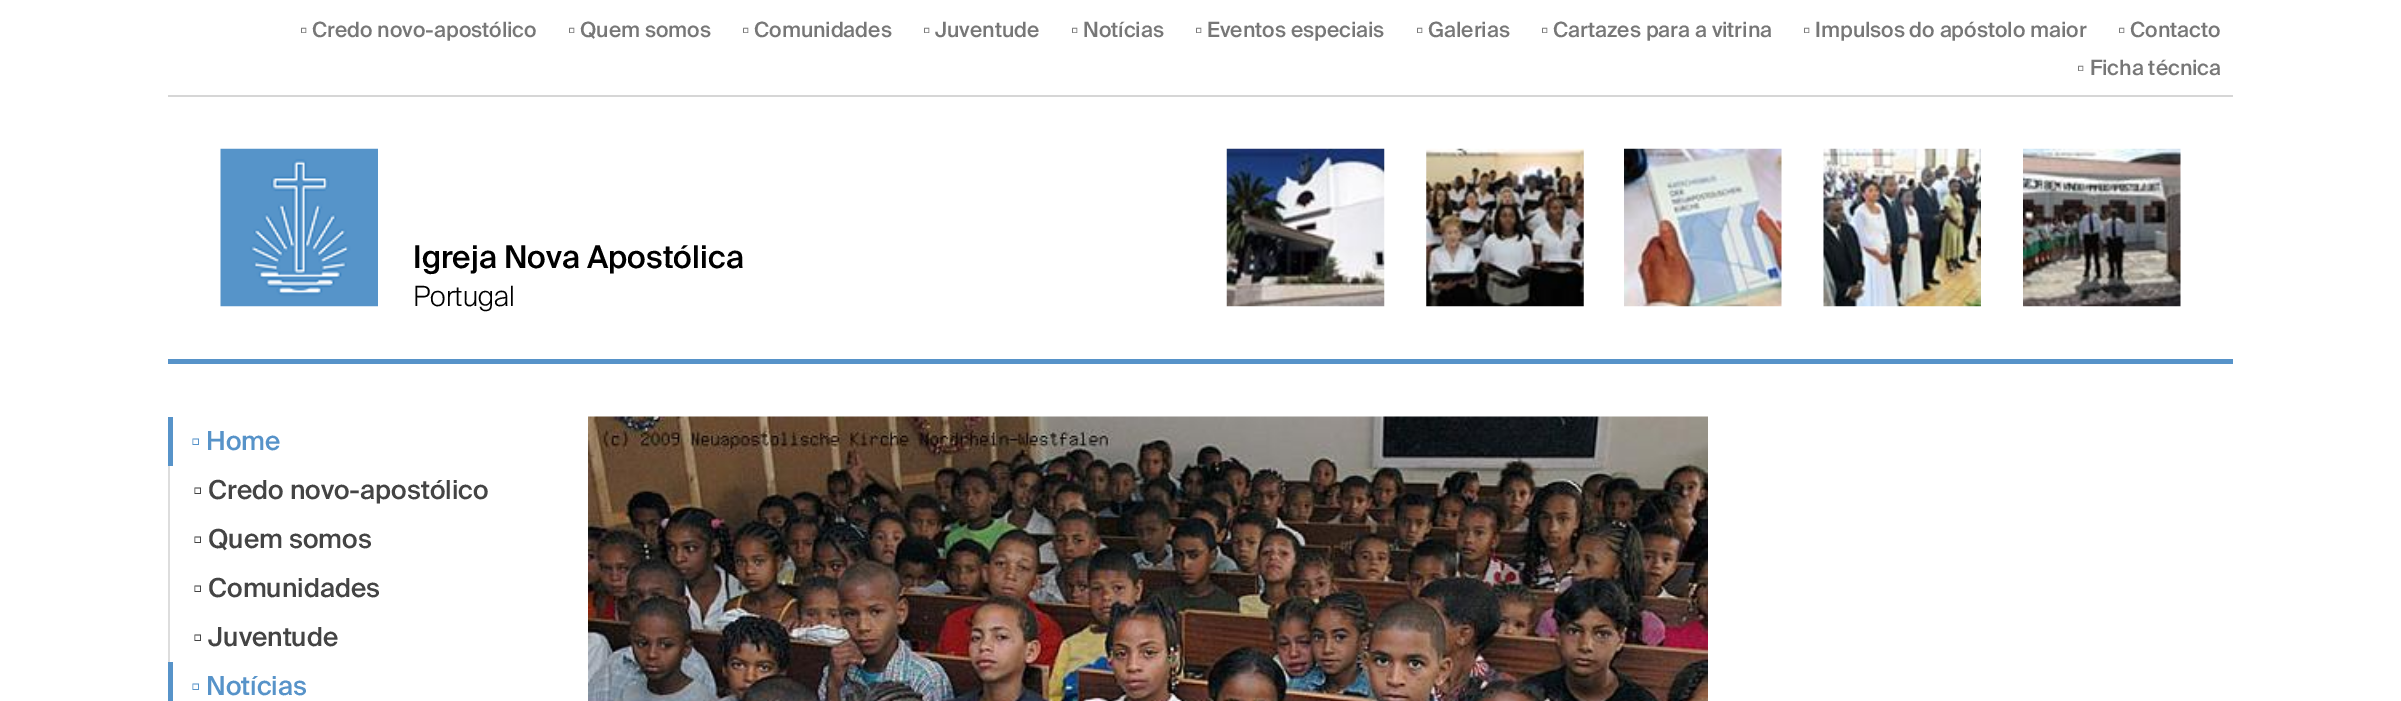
%!PS
<< /PageSize [2401 701] >> setpagedevice
/rgb { dup -16 bitshift 255 div exch dup -8 bitshift 255 and 255 div exch 255 and 255 div setrgbcolor } def
/font { [ exch dup neg 0 0 3 -1 roll 0 0 ] selectfont } def
/text { moveto show } def
/picture { 5 dict begin { /h /w /y /x /name } { exch def } forall
  gsave x y translate w h scale
  w h 8 [w 0 0 h 0 0] name (r) file false 3 colorimage grestore end } def
0 701 translate 1 -1 scale
4 setmiterlimit
/s1 { /LiberationSerif-Regular 21 font 16#777777 rgb } def
/s2 { /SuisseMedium-Medium 21 font 16#777777 rgb } def
/s3 { /SuisseMedium-Medium 31.5 font 16#000000 rgb } def
/s4 { /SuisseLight-Light 28 font 16#000000 rgb } def
/s5 { /LiberationSerif-Regular 26.25 font 16#5793C9 rgb } def
/s6 { /SuisseMedium-Medium 26.25 font 16#5793C9 rgb } def
/s7 { /LiberationSerif-Regular 26.25 font 16#444444 rgb } def
/s8 { /SuisseMedium-Medium 26.25 font 16#444444 rgb } def
16#FFFFFF rgb
0 0 2401 701 rectfill
s1
(▫) 300 37 text
s2
(Credo novo-apostólico) 312 37 text
s1
(▫) 568 37 text
s2
(Quem somos) 580 37 text
s1
(▫) 742 37 text
s2
(Comunidades) 754 37 text
s1
(▫) 923 37 text
s2
(Juventude) 935 37 text
s1
(▫) 1071 37 text
s2
(Notícias) 1083 37 text
s1
(▫) 1195 37 text
s2
(Eventos especiais) 1207 37 text
s1
(▫) 1416 37 text
s2
(Galerias) 1428 37 text
s1
(▫) 1541 37 text
s2
(Cartazes para a vitrina) 1553 37 text
s1
(▫) 1803 37 text
s2
(Impulsos do apóstolo maior) 1815 37 text
s1
(▫) 2118 37 text
s2
(Contacto) 2130 37 text
s1
(▫) 2077 75 text
s2
(Ficha técnica) 2090 75 text
16#D6D6D6 rgb
168 95 2065 2 rectfill
(pic1.raw) 220 148 158 159 picture
s3
(Igreja Nova Apostólica) 413 268 text
s4
(Portugal) 413 306 text
(pic2.raw) 1226 148 159 159 picture
(pic3.raw) 1426 148 158 159 picture
(pic4.raw) 1624 148 158 159 picture
(pic5.raw) 1823 148 158 159 picture
(pic6.raw) 2023 148 158 159 picture
16#5793C9 rgb
168 359 2065 5 rectfill
168 417 5 49 rectfill
s5
(▫) 191 450 text
s6
(Home) 206 450 text
16#DDDDDD rgb
168 466 2 196 rectfill
s7
(▫) 193 499 text
s8
(Credo novo-apostólico) 208 499 text
s7
(▫) 193 548 text
s8
(Quem somos) 208 548 text
s7
(▫) 193 597 text
s8
(Comunidades) 208 597 text
s7
(▫) 193 646 text
s8
(Juventude) 208 646 text
16#5793C9 rgb
168 662 5 39 rectfill
s5
(▫) 191 695 text
s6
(Notícias) 206 695 text
(pic7.raw) 588 416 1120 285 picture
showpage
